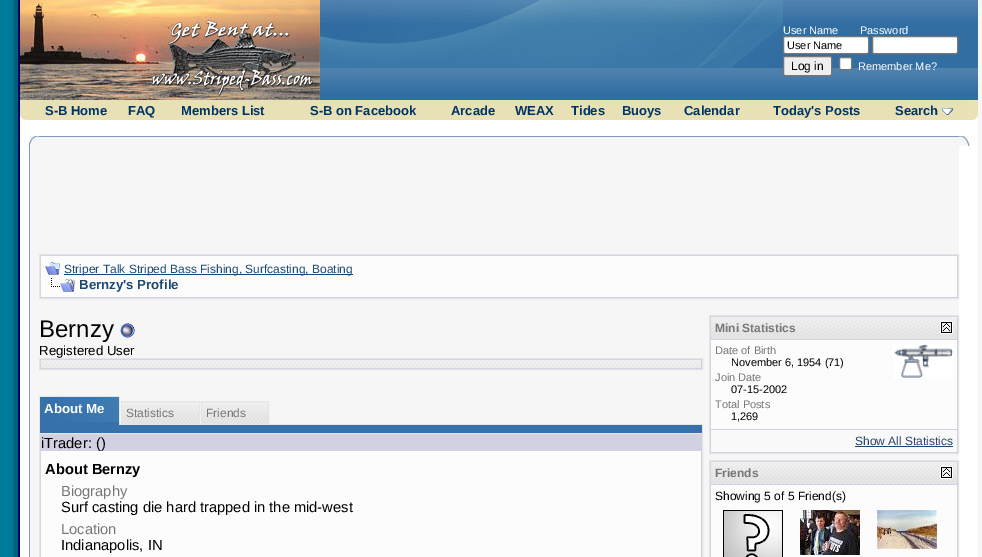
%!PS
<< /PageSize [982 557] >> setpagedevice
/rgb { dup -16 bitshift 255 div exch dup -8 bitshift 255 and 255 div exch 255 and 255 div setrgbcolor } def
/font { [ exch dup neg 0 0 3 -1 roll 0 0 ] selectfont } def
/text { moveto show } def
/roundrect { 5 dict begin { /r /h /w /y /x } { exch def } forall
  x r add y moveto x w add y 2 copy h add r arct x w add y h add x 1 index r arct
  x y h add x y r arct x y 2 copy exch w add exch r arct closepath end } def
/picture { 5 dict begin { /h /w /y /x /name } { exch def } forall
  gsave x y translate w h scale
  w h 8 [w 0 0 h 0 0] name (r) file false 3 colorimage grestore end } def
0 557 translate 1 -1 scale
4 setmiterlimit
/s1 { /LiberationSans-Regular 11 font 16#FFFFFF rgb } def
/s2 { /LiberationSans-Regular 11 font 16#000000 rgb } def
/s3 { /LiberationSans-Regular 12 font 16#000000 rgb } def
/s4 { /LiberationSans-Bold 13 font 16#003366 rgb } def
/s5 { /LiberationSans-Regular 12 font 16#1C4874 rgb } def
/s6 { /LiberationSans-Bold 13.25 font 16#1C4874 rgb } def
/s7 { /LiberationSans-Regular 24 font 16#000000 rgb } def
/s8 { /LiberationSans-Regular 13.25 font 16#000000 rgb } def
/s9 { /LiberationSans-Bold 13.25 font 16#FFFFFF rgb } def
/s10 { /LiberationSans-Regular 12 font 16#777777 rgb } def
/s11 { /LiberationSans-Regular 14.7 font 16#000000 rgb } def
/s12 { /LiberationSans-Bold 14.7 font 16#000000 rgb } def
/s13 { /LiberationSans-Regular 14.7 font 16#777777 rgb } def
/s14 { /LiberationSans-Bold 12 font 16#777777 rgb } def
/s15 { /LiberationSans-Regular 11 font 16#777777 rgb } def
16#FFFFFF rgb
0 0 982 557 rectfill
(pic1.raw) 0 0 20 557 picture
(pic2.raw) 320 0 658 100 picture
(pic3.raw) 20 0 300 100 picture
(pic4.raw) 320 0 463 68 picture
s1
(User Name) 783 34 text
(Password) 860 34 text
783.5 36.5 85 17 1.5 roundrect gsave fill grestore
16#767676 rgb
stroke
s2
(User Name) 787 49 text
16#FFFFFF rgb
872.5 36.5 85 17 1.5 roundrect gsave fill grestore
16#767676 rgb
stroke
16#EFEFEF rgb
783.5 56.5 48 19 1.5 roundrect gsave fill grestore
16#767676 rgb
stroke
s3
(Log in) 791 70 text
16#FFFFFF rgb
839.5 57.5 12 12 1.5 roundrect gsave fill grestore
16#767676 rgb
stroke
s1
(Remember Me?) 858 70 text
(pic5.raw) 20 100 10 20 picture
16#E9E1B6 rgb
30 100 937 20 rectfill
s4
(S-B Home) 45 115 text
(FAQ) 128 115 text
(Members List) 181 115 text
(S-B on Facebook) 310 115 text
(Arcade) 451 115 text
(WEAX) 515 115 text
(Tides) 571 115 text
(Buoys) 622 115 text
(Calendar) 684 115 text
(Today's Posts) 773 115 text
(Search) 895 115 text
(pic6.raw) 942 108 11 7 picture
(pic7.raw) 967 100 11 20 picture
(pic8.raw) 28 136 11 10 picture
(pic9.raw) 39 136 920 10 picture
(pic10.raw) 959 136 16 10 picture
(pic11.raw) 29 146 10 411 picture
16#F6F6F6 rgb
39 146 920 411 rectfill
16#D1D1E1 rgb
39.5 254.5 moveto 958.5 254.5 lineto 958.5 298.5 lineto 39.5 298.5 lineto closepath gsave fill grestore
16#E5E5E5 rgb
stroke
16#FCFCFC rgb
41 256 916 41 rectfill
(pic12.raw) 45 262 15 13 picture
16#1C4874 rgb
64 274 289 1 rectfill
s5
(Striper Talk Striped Bass Fishing, Surfcasting, Boating) 64 273 text
(pic13.raw) 51 278 24 14 picture
s6
(Bernzy's Profile) 79 289 text
s7
(Bernzy) 39 337 text
(pic14.raw) 120 323 15 15 picture
s8
(Registered User) 39 355 text
16#D1D1E1 rgb
39.5 358.5 moveto 702.5 358.5 lineto 702.5 369.5 lineto 39.5 369.5 lineto closepath gsave fill grestore
16#E5E5E5 rgb
stroke
(pic15.raw) 41 360 660 8 picture
16#3671A9 rgb
40 397 79 28 rectfill
(pic16.raw) 54 397 65 25 picture
16#E5E5E5 rgb
39 396 81 1 rectfill
119 396 1 29 rectfill
39 424 1 9 rectfill
39 396 1 29 rectfill
s9
(About Me) 44 413 text
(pic17.raw) 122 402 77 22 picture
16#E5E5E5 rgb
120 424 583 1 rectfill
121.5 401.5 78 23 rectstroke
s10
(Statistics) 126 417 text
(pic18.raw) 202 402 66 22 picture
16#E5E5E5 rgb
201.5 401.5 67 23 rectstroke
s10
(Friends) 206 417 text
16#3671A9 rgb
40 425 662 8 rectfill
16#E5E5E5 rgb
702 424 1 9 rectfill
16#D1D1E1 rgb
39.5 433.5 moveto 702.5 433.5 lineto 702.5 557.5 lineto 39.5 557.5 lineto closepath gsave fill grestore
16#E5E5E5 rgb
stroke
16#FCFCFC rgb
41 451 660 106 rectfill
s11
(iTrader: \(\)) 41 448 text
s12
(About Bernzy) 45 474 text
s13
(Biography) 61 496 text
s11
(Surf casting die hard trapped in the mid-west) 61 512 text
s13
(Location) 61 534 text
s11
(Indianapolis, IN) 61 550 text
16#D1D1E1 rgb
709.5 315.5 moveto 958.5 315.5 lineto 958.5 453.5 lineto 709.5 453.5 lineto closepath gsave fill grestore
16#E5E5E5 rgb
stroke
(pic19.raw) 711 317 246 22 picture
s14
(Mini Statistics) 715 332 text
(pic20.raw) 940 321 13 13 picture
16#FCFCFC rgb
711 340 246 89 rectfill
s15
(Date of Birth) 715 354 text
s2
(November 6, 1954 \(71\)) 731 366 text
s15
(Join Date) 715 381 text
s2
(07-15-2002) 731 393 text
s15
(Total Posts) 715 408 text
s2
(1,269) 731 420 text
(pic21.raw) 893 344 60 35 picture
16#F9F9F9 rgb
711 430 246 22 rectfill
s5
(Show All Statistics) 855 445 text
855 446 98 1 rectfill
16#D1D1E1 rgb
709.5 460.5 moveto 958.5 460.5 lineto 958.5 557.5 lineto 709.5 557.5 lineto closepath gsave fill grestore
16#E5E5E5 rgb
stroke
(pic19.raw) 711 462 246 22 picture
s14
(Friends) 715 477 text
(pic20.raw) 940 466 13 13 picture
16#FCFCFC rgb
711 485 246 72 rectfill
s3
(Showing 5 of 5 Friend\(s\)) 715 500 text
(pic22.raw) 723 510 60 47 picture
(pic23.raw) 800 510 60 45 picture
(pic24.raw) 877 510 60 39 picture
16#F6F6F6 rgb
978 0 4 557 rectfill
showpage
